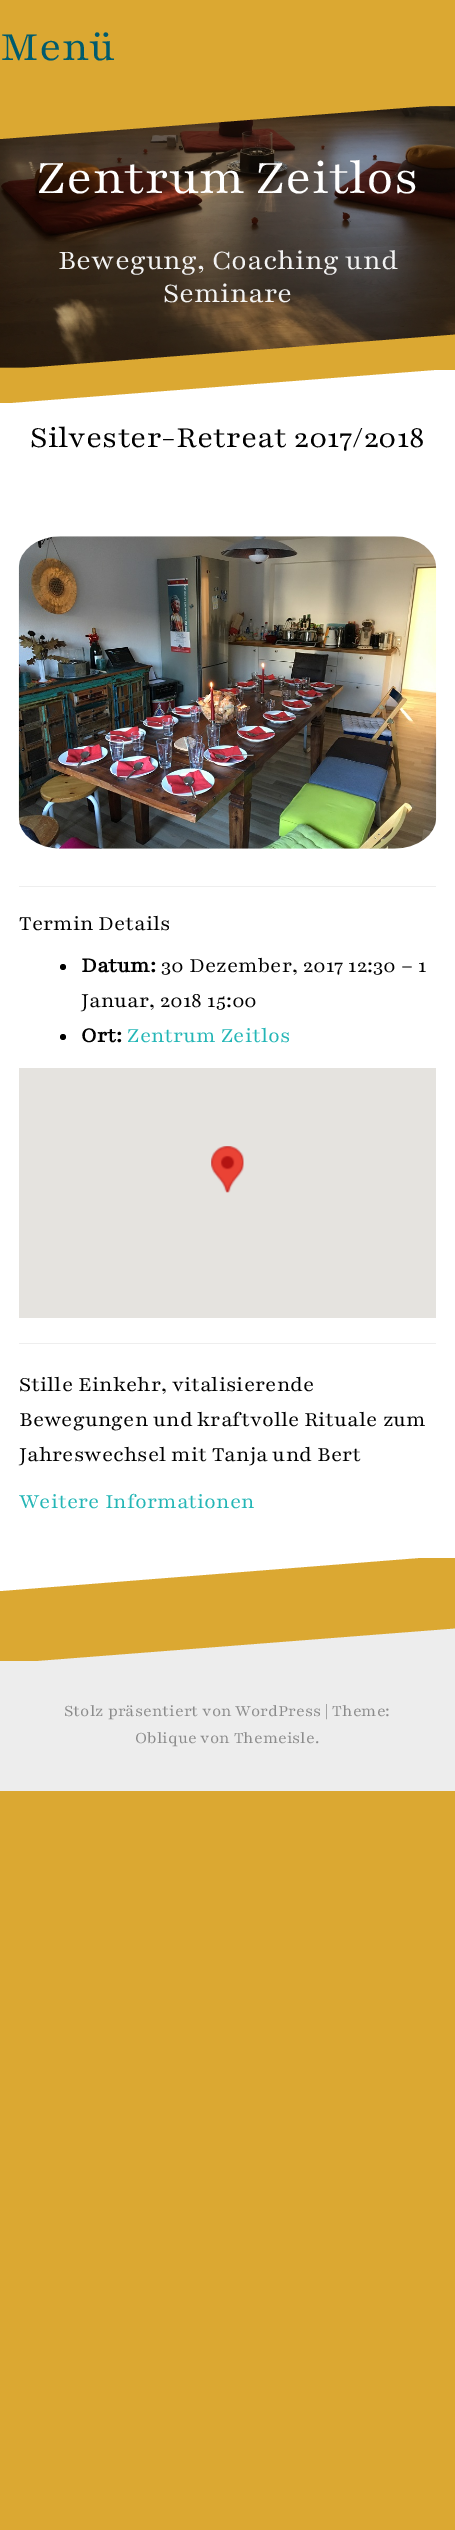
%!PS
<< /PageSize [455 2530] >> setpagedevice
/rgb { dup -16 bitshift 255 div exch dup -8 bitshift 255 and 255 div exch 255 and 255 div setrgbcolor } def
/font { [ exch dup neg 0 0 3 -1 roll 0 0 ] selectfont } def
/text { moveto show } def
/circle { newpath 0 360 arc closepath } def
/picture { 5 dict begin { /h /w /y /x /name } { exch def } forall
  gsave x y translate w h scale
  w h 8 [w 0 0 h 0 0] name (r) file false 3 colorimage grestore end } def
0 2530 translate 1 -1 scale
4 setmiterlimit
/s1 { /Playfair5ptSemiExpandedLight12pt-Light 45 font 16#005B6D rgb } def
/s2 { /Playfair5ptSemiExpandedLight12pt-Light 52.5 font 16#FFFFFF rgb } def
/s3 { /Playfair5ptSemiExpandedLight12pt-Light 30 font 16#F2F2F2 rgb } def
/s4 { /Playfair5ptSemiExpandedLight12pt-Light 32.5 font 16#000000 rgb } def
/s5 { /Playfair5ptSemiExpandedLight12pt-Light 22.5 font 16#000000 rgb } def
/s6 { /Playfair5ptSemiExpandedLight12pt-Bold 22.5 font 16#000000 rgb } def
/s7 { /Playfair5ptSemiExpandedLight12pt-Light 22.5 font 16#23B6B6 rgb } def
/s8 { /Playfair5ptSemiExpandedLight12pt-Light 17.5 font 16#8B8B8B rgb } def
16#DBA832 rgb
0 0 455 2530 rectfill
16#997623 rgb
0 106 455 262 rectfill
s1
(Menü) 0 60 text
(pic1.raw) 0 106 455 262 picture
16#DBA832 rgb
0 139 moveto 0 104 lineto 455 104 lineto fill
s2
(Zentrum Zeitlos) 37 193 text
s3
(Bewegung, Coaching und) 58 269 text
(Seminare) 163 302 text
16#FFFFFF rgb
0 403 455 1155 rectfill
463 368 moveto 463 404 lineto 0 404 lineto fill
16#DBA832 rgb
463 334 moveto 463 370 lineto 0 370 lineto fill
s4
(Silvester-Retreat 2017/2018) 30 447 text
(pic2.raw) 18 536 419 313 picture
16#EEEEEE rgb
19 886 417 1 rectfill
s5
(Termin Details) 19 930 text
63 967 3 circle fill
s6
(Datum:) 81 972 text
s5
(30 Dezember, 2017 12:30 – 1) 161 972 text
(Januar, 2018 15:00) 81 1007 text
63 1037 3 circle fill
s6
(Ort:) 81 1042 text
s7
(Zentrum Zeitlos) 127 1042 text
16#E5E3DF rgb
19 1068 417 250 rectfill
(pic3.raw) 211 1146 33 47 picture
16#EEEEEE rgb
19 1343 417 1 rectfill
s5
(Stille Einkehr, vitalisierende) 19 1391 text
(Bewegungen und kraftvolle Rituale zum) 19 1426 text
(Jahreswechsel mit Tanja und Bert) 19 1461 text
s7
(Weitere Informationen) 19 1508 text
16#FFFFFF rgb
0 1591 moveto 0 1555 lineto 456 1555 lineto fill
16#EDEDED rgb
0 1661 455 130 rectfill
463 1628 moveto 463 1664 lineto 0 1664 lineto fill
s8
(Stolz präsentiert von WordPress | Theme:) 64 1716 text
(Oblique von Themeisle.) 135 1743 text
showpage
